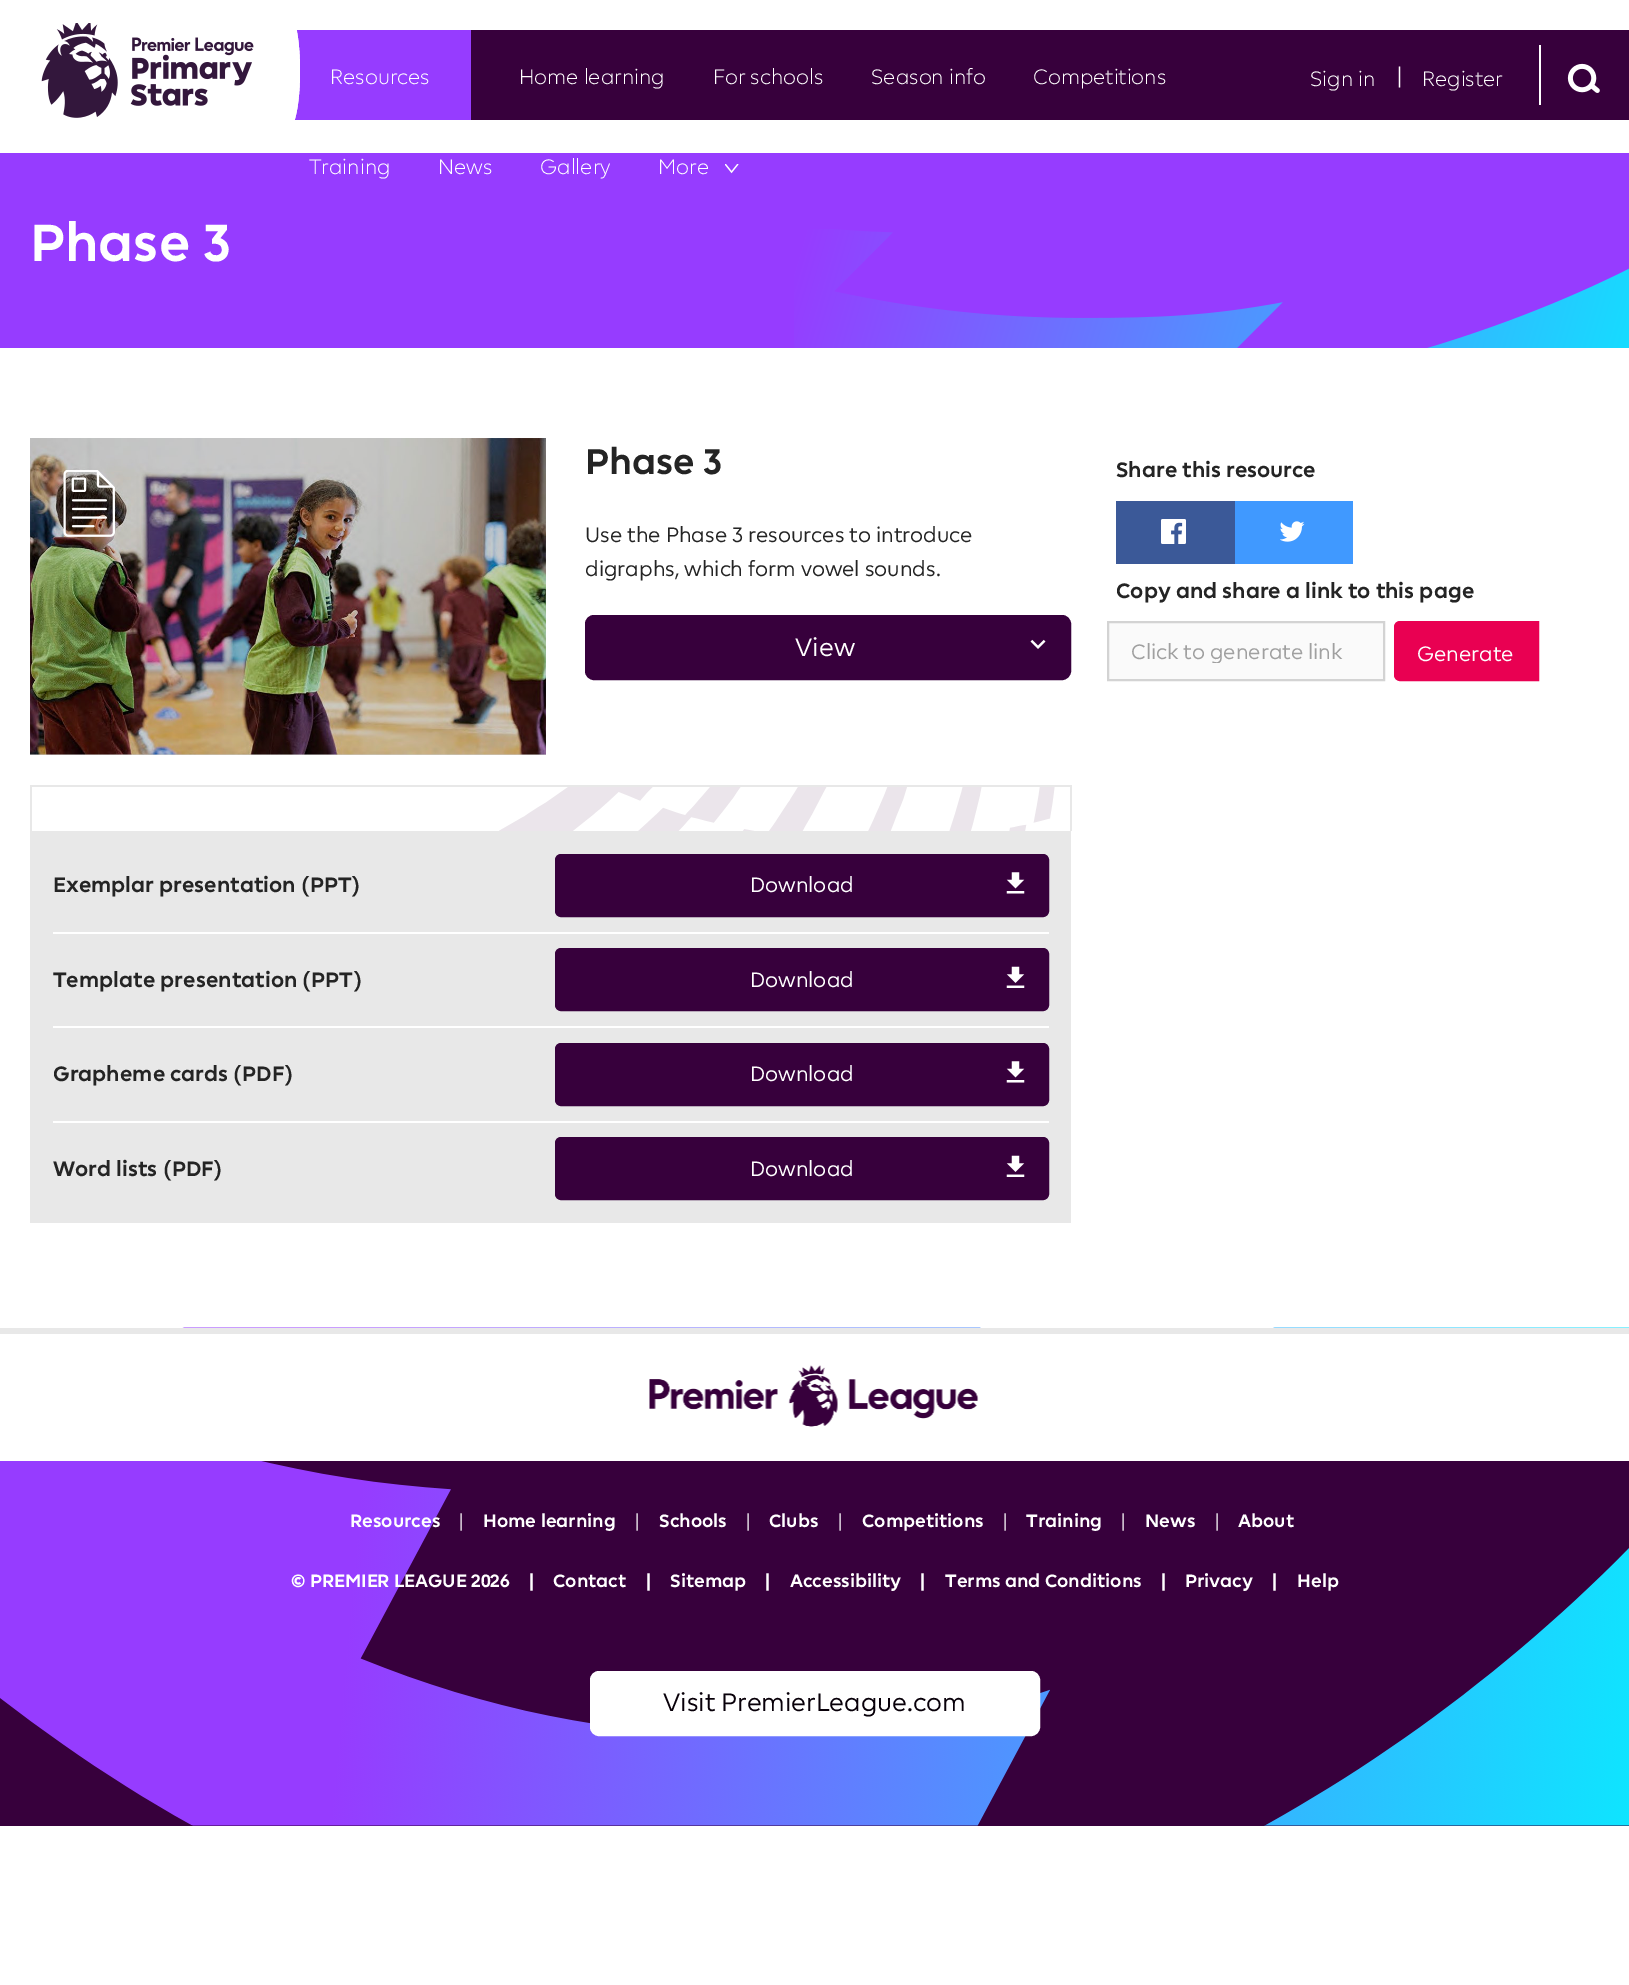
%!PS
<< /PageSize [1629 1985] >> setpagedevice
/rgb { dup -16 bitshift 255 div exch dup -8 bitshift 255 and 255 div exch 255 and 255 div setrgbcolor } def
/font { [ exch dup neg 0 0 3 -1 roll 0 0 ] selectfont } def
/text { moveto show } def
/roundrect { 5 dict begin { /r /h /w /y /x } { exch def } forall
  x r add y moveto x w add y 2 copy h add r arct x w add y h add x 1 index r arct
  x y h add x y r arct x y 2 copy exch w add exch r arct closepath end } def
/picture { 5 dict begin { /h /w /y /x /name } { exch def } forall
  gsave x y translate w h scale
  w h 8 [w 0 0 h 0 0] name (r) file false 3 colorimage grestore end } def
0 1985 translate 1 -1 scale
4 setmiterlimit
/s1 { /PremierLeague-Light 21 font 16#FFFFFF rgb } def
/s2 { /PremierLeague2-Bold 21 font 16#FFFFFF rgb } def
/s3 { /PremierLeague-Bold 52.5 font 16#FFFFFF rgb } def
/s4 { /PremierLeague-Bold 36 font 16#242424 rgb } def
/s5 { /PremierLeague-Regular 21 font 16#242424 rgb } def
/s6 { /PremierLeague-Regular 25.5 font 16#FFFFFF rgb } def
/s7 { /PremierLeague-Bold 21 font 16#242424 rgb } def
/s8 { /PremierLeague-Regular 21 font 16#FFFFFF rgb } def
/s9 { /PremierLeague-Regular 21 font 16#A0A0A0 rgb } def
/s10 { /PremierLeague-Bold 18 font 16#FFFFFF rgb } def
/s11 { /PremierLeague-Regular 18 font 16#FFFFFF rgb } def
/s12 { /PremierLeague-Regular 25.5 font 16#080009 rgb } def
16#FFFFFF rgb
0 0 1629 1985 rectfill
16#CCCCCC rgb
30 754 516 1 rectfill
16#37003C rgb
471 30 1158 90 rectfill
16#963CFF rgb
294 30 177 90 rectfill
16#FFFFFF rgb
0 15 moveto 289 15 lineto 295 15 300 40 300 71 curveto 300 102 295 128 289 128 curveto 0 128 lineto closepath fill
0 23 moveto 0 128 lineto 289 128 lineto 295 128 300 102 300 71 curveto 300 51 298 33 295 23 curveto closepath fill
(pic1.raw) 41 23 213 95 picture
s1
(Resources) 330 84 text
(Home learning) 519 84 text
(For schools) 713 84 text
(Season info) 871 84 text
(Competitions) 1033 84 text
16#963CFF rgb
0 153 1629 195 rectfill
s1
(Training) 309 174 text
(News) 438 174 text
(Gallery) 540 174 text
(More) 658 174 text
(pic2.raw) 725 164 14 10 picture
(Sign in) 1310 86 text
s2
(|) 1397 83 text
s1
(Register) 1422 86 text
1539 45 2 60 rectfill
(pic3.raw) 1567 63 33 30 picture
s3
(Phase 3) 30 261 text
(pic4.raw) 794 229 835 119 picture
(pic5.raw) 30 438 516 317 picture
(pic6.raw) 63 470 52 67 picture
s4
(Phase 3) 585 474 text
s5
(Use the Phase 3 resources to introduce) 585 542 text
(digraphs, which form vowel sounds.) 585 576 text
16#37003C rgb
586.5 616.5 483 62 7.5 roundrect gsave fill grestore
3 setlinewidth
stroke
s6
(View) 795 656 text
(pic7.raw) 1030 639 16 10 picture
16#E8E8E8 rgb
30 831 1041 392 rectfill
(pic8.raw) 499 787 556 44 picture
30 785 1041 2 rectfill
1070 785 2 46 rectfill
30 785 2 46 rectfill
16#FFFFFF rgb
53 932 996 2 rectfill
s7
(Exemplar presentation \(PPT\)) 53 892 text
16#37003C rgb
556.5 855.5 491 60 4.5 roundrect gsave fill grestore
stroke
s8
(Download) 750 892 text
(pic9.raw) 1006 872 19 22 picture
53 1026 996 2 rectfill
s7
(Template presentation \(PPT\)) 53 987 text
16#37003C rgb
556.5 949.5 491 60 4.5 roundrect gsave fill grestore
stroke
s8
(Download) 750 987 text
(pic10.raw) 1006 966 19 22 picture
53 1121 996 2 rectfill
s7
(Grapheme cards \(PDF\)) 53 1081 text
16#37003C rgb
556.5 1044.5 491 60 4.5 roundrect gsave fill grestore
stroke
s8
(Download) 750 1081 text
(pic9.raw) 1006 1061 19 22 picture
s7
(Word lists \(PDF\)) 53 1176 text
16#37003C rgb
556.5 1138.5 491 60 4.5 roundrect gsave fill grestore
stroke
s8
(Download) 750 1176 text
(pic10.raw) 1006 1155 19 22 picture
s7
(Share this resource) 1116 477 text
16#3B5998 rgb
1116 501 119 63 rectfill
(pic11.raw) 1161 519 25 25 picture
16#4099FF rgb
1235 501 118 63 rectfill
(pic12.raw) 1280 521 25 21 picture
s7
(Copy and share a link to this page) 1116 598 text
16#FAFAFA rgb
1108 622 moveto 1384 622 lineto 1384 680 lineto 1108 680 lineto closepath gsave fill grestore
16#D3D3D3 rgb
2 setlinewidth
stroke
gsave
1131 639 249 24 rectclip
s9
(Click to generate link) 1131 659 text
grestore
16#E90052 rgb
1400 622.5 moveto 1537.5 622.5 lineto 1537.5 679.5 lineto 1400 679.5 lineto 1397.5 679.5 1395.5 677.5 1395.5 675 curveto 1395.5 627 lineto 1395.5 624.5 1397.5 622.5 1400 622.5 curveto closepath gsave fill grestore
3 setlinewidth
stroke
s8
(Generate) 1417 661 text
16#37003C rgb
0 1461 1629 365 rectfill
(pic13.raw) 0 1327 1629 499 picture
16#E8E8E8 rgb
0 1328 1629 6 rectfill
16#FFFFFF rgb
0 1334 1629 127 rectfill
(pic14.raw) 649 1365 330 62 picture
s10
(Resources) 350 1527 text
s11
(|) 459 1527 text
s10
(Home learning) 483 1527 text
s11
(|) 635 1527 text
s10
(Schools) 659 1527 text
s11
(|) 746 1527 text
s10
(Clubs) 769 1527 text
s11
(|) 838 1527 text
s10
(Competitions) 862 1527 text
s11
(|) 1003 1527 text
s10
(Training) 1026 1527 text
s11
(|) 1121 1527 text
s10
(News) 1145 1527 text
s11
(|) 1215 1527 text
s10
(About) 1238 1527 text
(© PREMIER LEAGUE 2026) 291 1587 text
(|) 529 1587 text
(Contact) 553 1587 text
(|) 646 1587 text
(Sitemap) 670 1587 text
(|) 765 1587 text
(Accessibility) 790 1587 text
(|) 920 1587 text
(Terms and Conditions) 945 1587 text
(|) 1161 1587 text
(Privacy) 1185 1587 text
(|) 1272 1587 text
(Help) 1297 1587 text
591.5 1672.5 447 62 7.5 roundrect gsave fill grestore
stroke
s12
(Visit PremierLeague.com) 663 1711 text
showpage
